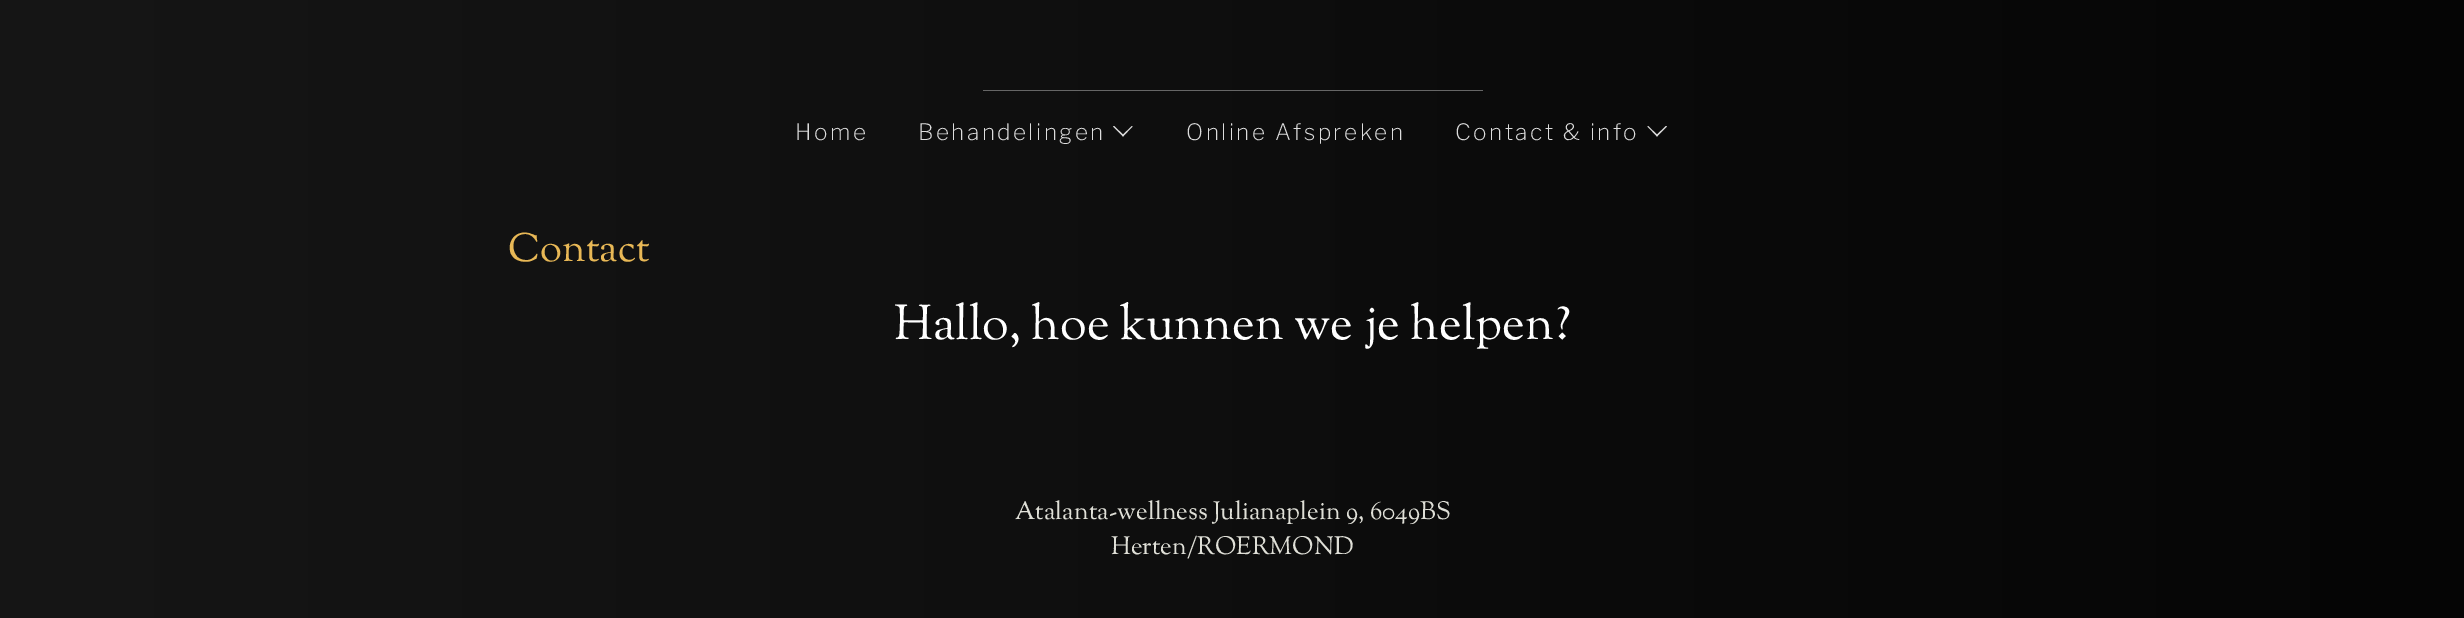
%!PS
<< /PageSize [2464 618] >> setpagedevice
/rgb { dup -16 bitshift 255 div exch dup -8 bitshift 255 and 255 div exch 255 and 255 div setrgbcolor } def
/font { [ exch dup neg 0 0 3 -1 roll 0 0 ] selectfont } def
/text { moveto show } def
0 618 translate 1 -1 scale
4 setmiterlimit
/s1 { /SortsMillGoudy-Regular 40 font 16#E8B856 rgb } def
/s2 { /SortsMillGoudy-Regular 48.75 font 16#FFFFFF rgb } def
/s3 { /SortsMillGoudy-Regular 25 font 16#DFDFD7 rgb } def
16#FFFFFF rgb
0 0 2464 618 rectfill
gsave 0 0 moveto 2464 0 lineto 2464 618 lineto 0 618 lineto closepath clip newpath
<< /ShadingType 2 /ColorSpace /DeviceRGB /Coords [0 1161 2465 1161] /Extend [true true] /Function << /FunctionType 2 /Domain [0 1] /C0 [0.086 0.086 0.086] /C1 [0.02 0.02 0.02] /N 1 >> >> shfill grestore
16#666666 rgb
983 90 500 1 rectfill
/LibreFranklin-ExtraLight 22.5 font
16#DDDDDD rgb
795 140 moveto 2.5 0 (Home) ashow
918 140 moveto 2.5 0 (Behandelingen) ashow
1132 126 moveto 1132.5 126.5 lineto 1123 136.5 lineto 1122 135.5 lineto closepath fill
1114 126 moveto 1124 135.5 lineto 1123 136.5 lineto 1113 126.5 lineto closepath fill
1186 140 moveto 2.5 0 (Online Afspreken) ashow
1455 140 moveto 2.5 0 (Contact & info) ashow
1666 126 moveto 1667 126.5 lineto 1657 136.5 lineto 1656 135.5 lineto closepath fill
1648 126 moveto 1658 135.5 lineto 1657 136.5 lineto 1647.5 126.5 lineto closepath fill
s1
(Contact) 508 261 text
s2
(Hallo, hoe kunnen we je helpen?) 894 339 text
s3
(Atalanta-wellness Julianaplein 9, 6049BS) 1015 519 text
(Herten/ROERMOND) 1111 554 text
showpage
